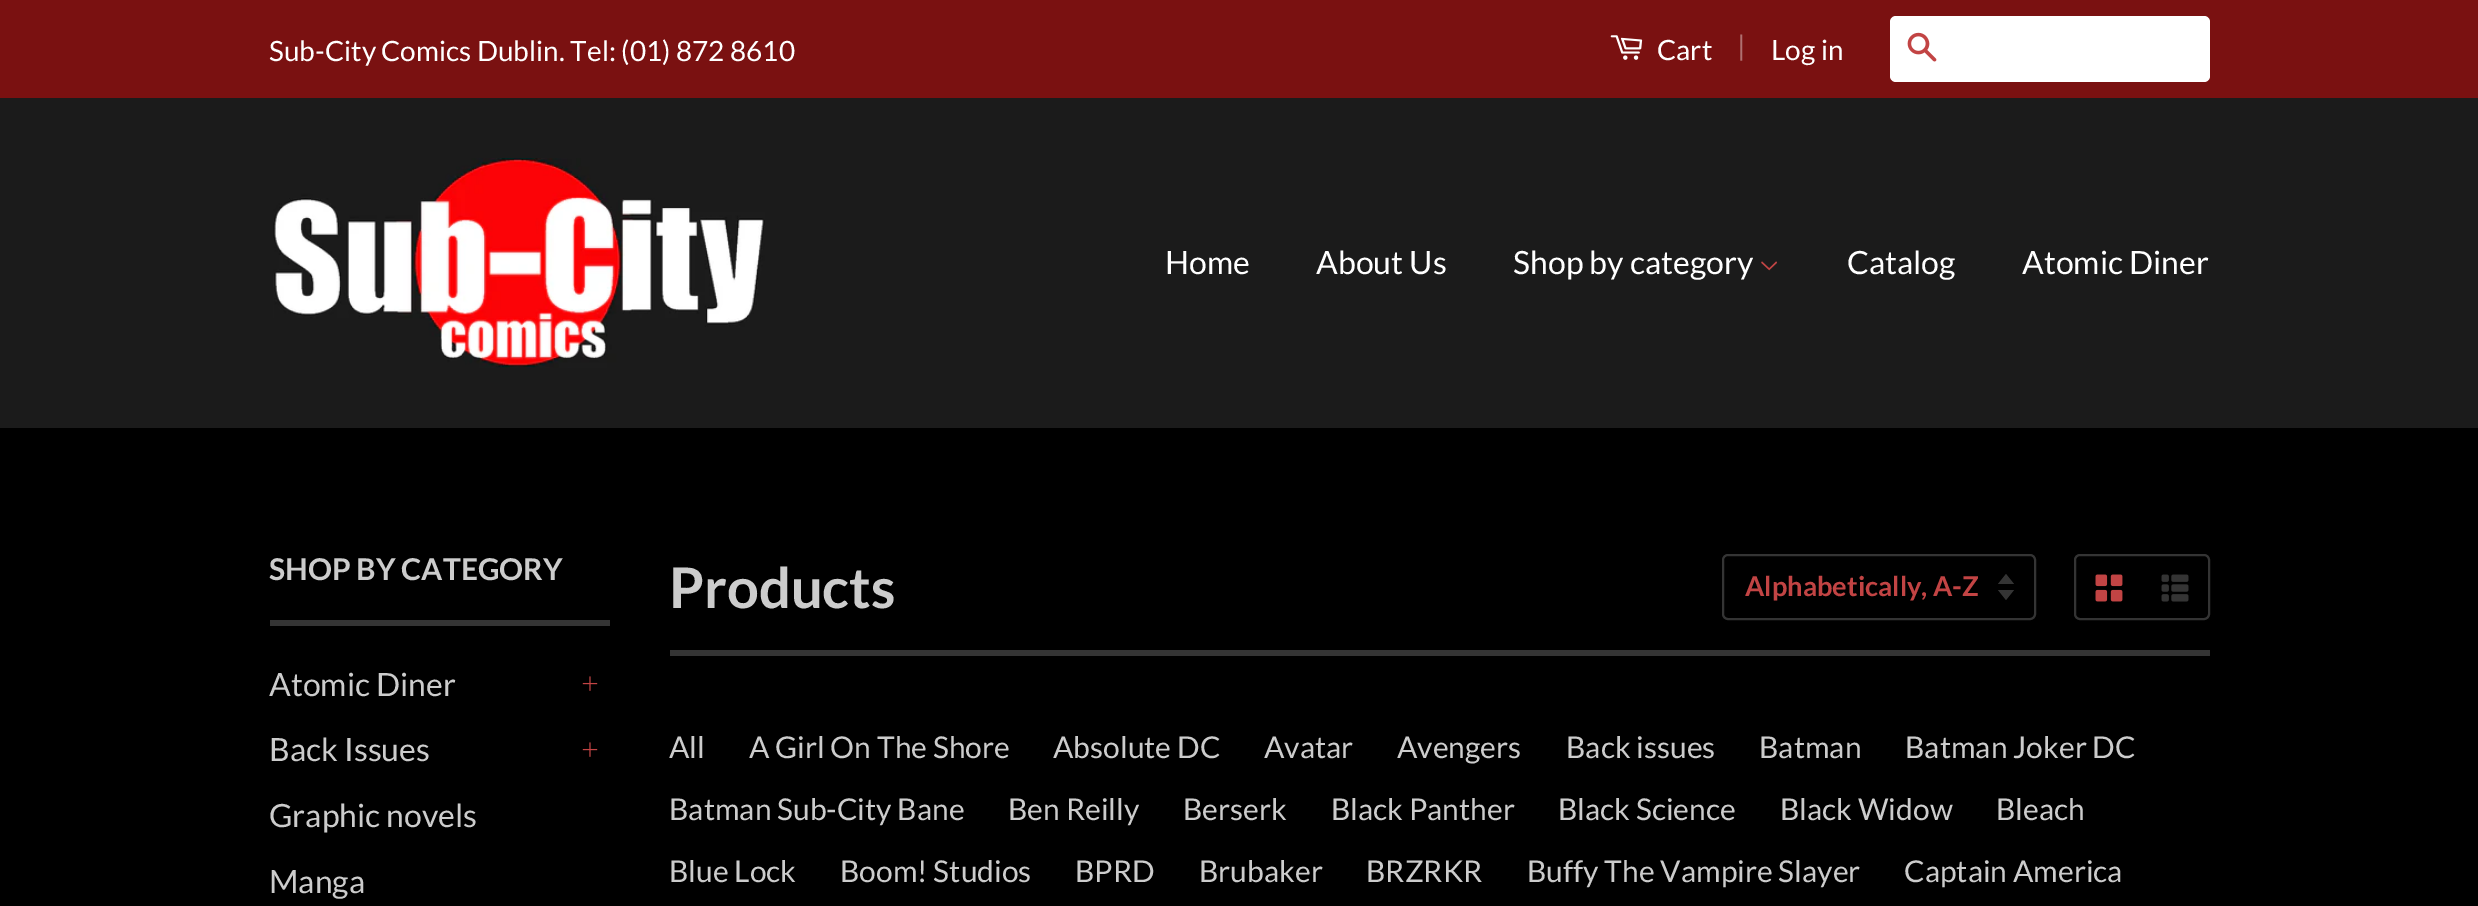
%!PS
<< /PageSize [2478 906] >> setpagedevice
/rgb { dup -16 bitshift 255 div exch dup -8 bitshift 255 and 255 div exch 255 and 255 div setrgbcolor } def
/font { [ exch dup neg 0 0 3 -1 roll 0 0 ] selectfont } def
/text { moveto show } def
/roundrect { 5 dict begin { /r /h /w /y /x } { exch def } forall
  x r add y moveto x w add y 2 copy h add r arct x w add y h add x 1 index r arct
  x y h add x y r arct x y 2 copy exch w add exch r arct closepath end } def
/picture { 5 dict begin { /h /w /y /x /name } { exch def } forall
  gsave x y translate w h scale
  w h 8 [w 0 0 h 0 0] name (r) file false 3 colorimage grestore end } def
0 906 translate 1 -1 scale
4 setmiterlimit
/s1 { /Lato-Regular 28 font 16#FFFFFF rgb } def
/s2 { /Lato-Regular 28 font 16#AF7070 rgb } def
/s3 { /Lato-Regular 32 font 16#FFFFFF rgb } def
/s4 { /Lato-Bold 30 font 16#CCCCCC rgb } def
/s5 { /Lato-Regular 32 font 16#CCCCCC rgb } def
/s6 { /Lato-Bold 56 font 16#CCCCCC rgb } def
/s7 { /Lato-Bold 27.25 font 16#C24444 rgb } def
/s8 { /Lato-Regular 30 font 16#CCCCCC rgb } def
16#000000 rgb
0 0 2478 906 rectfill
16#7A1111 rgb
0 0 2478 98 rectfill
s1
(Sub-City Comics Dublin. Tel: \(01\) 872 8610) 269 61 text
(pic1.raw) 1610 35 33 25 picture
(Cart) 1657 60 text
s2
(|) 1737 56 text
s1
(Log in) 1771 60 text
1890 16 320 66 6 roundrect fill
(pic2.raw) 1907 32 30 30 picture
16#1B1B1B rgb
0 98 2478 330 rectfill
(pic3.raw) 273 158 492 210 picture
s3
(Home) 1165 274 text
(About Us) 1316 274 text
(Shop by category) 1513 274 text
(pic4.raw) 1761 261 16 10 picture
(Catalog) 1847 274 text
(Atomic Diner) 2022 274 text
16#343434 rgb
270 620 340 6 rectfill
s4
(SHOP BY CATEGORY) 269 580 text
s5
(Atomic Diner) 269 696 text
(pic5.raw) 582 676 16 15 picture
(Back Issues) 269 761 text
(pic5.raw) 582 742 16 15 picture
(Graphic novels) 269 827 text
(Manga) 269 893 text
16#343434 rgb
670 650 1540 6 rectfill
s6
(Products) 669 608 text
16#343434 rgb
1998 590 moveto 2006 600 lineto 2014 590 lineto closepath 2006 574 moveto 1998 584 lineto 2014 584 lineto closepath fill
2 setlinewidth
1723 555 312 64 5 roundrect stroke
s7
(Alphabetically, A-Z) 1745 596 text
16#343434 rgb
2075 555 134 64 5 roundrect stroke
(pic6.raw) 2095 574 28 28 picture
(pic7.raw) 2161 574 28 28 picture
s8
(All) 669 758 text
(A Girl On The Shore) 749 758 text
(Absolute DC) 1053 758 text
(Avatar) 1264 758 text
(Avengers) 1397 758 text
(Back issues) 1566 758 text
(Batman) 1759 758 text
(Batman Joker DC) 1905 758 text
(Batman Sub-City Bane) 669 820 text
(Ben Reilly) 1008 820 text
(Berserk) 1183 820 text
(Black Panther) 1331 820 text
(Black Science) 1558 820 text
(Black Widow) 1780 820 text
(Bleach) 1996 820 text
(Blue Lock) 669 882 text
(Boom! Studios) 840 882 text
(BPRD) 1075 882 text
(Brubaker) 1199 882 text
(BRZRKR) 1366 882 text
(Buffy The Vampire Slayer) 1527 882 text
(Captain America) 1904 882 text
showpage
